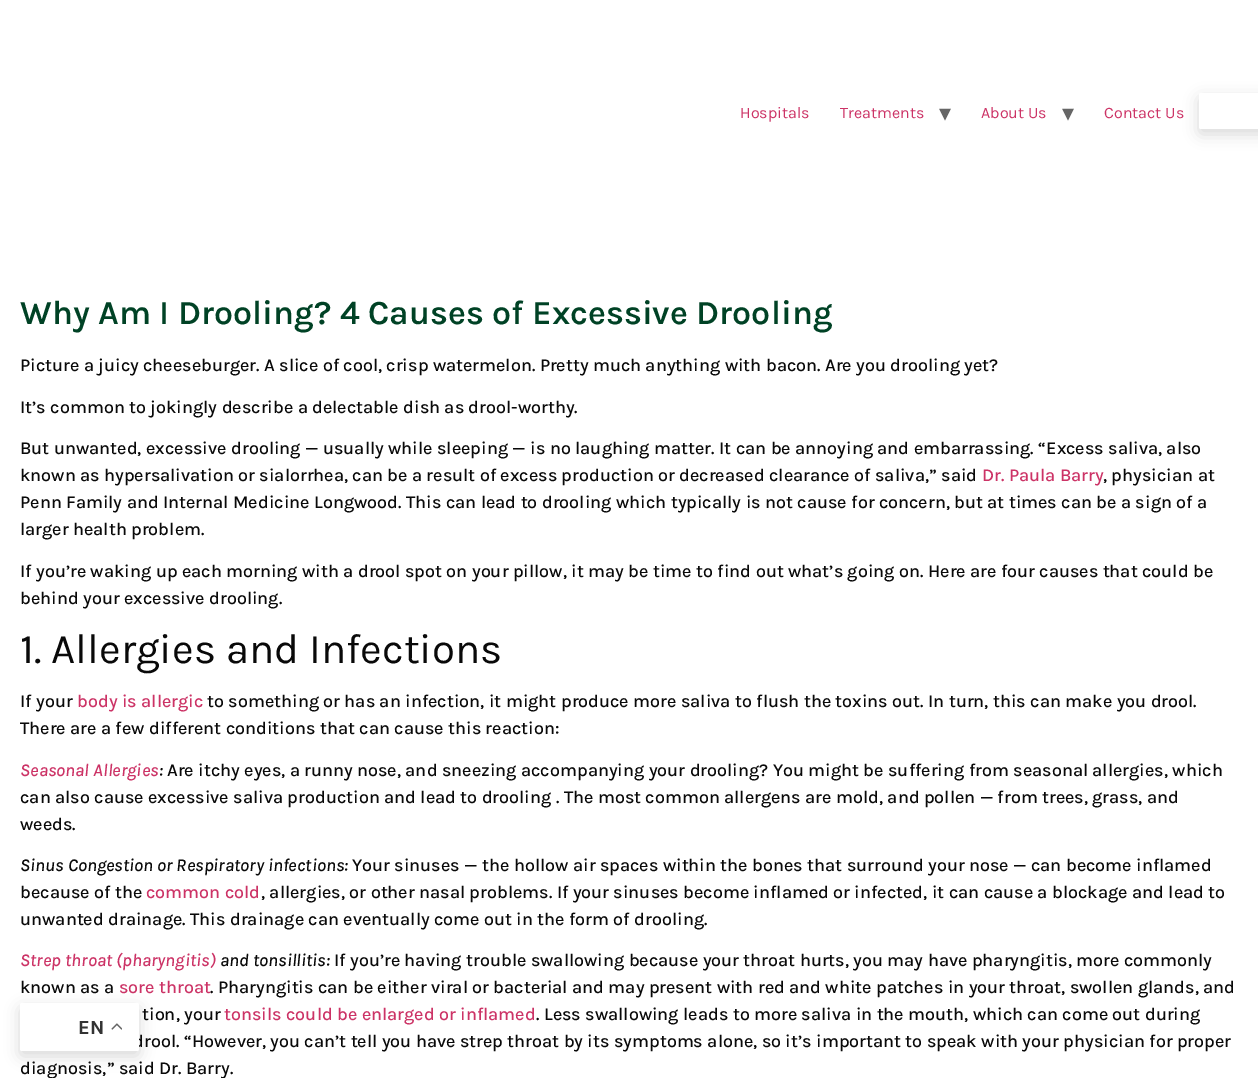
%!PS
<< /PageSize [1258 1078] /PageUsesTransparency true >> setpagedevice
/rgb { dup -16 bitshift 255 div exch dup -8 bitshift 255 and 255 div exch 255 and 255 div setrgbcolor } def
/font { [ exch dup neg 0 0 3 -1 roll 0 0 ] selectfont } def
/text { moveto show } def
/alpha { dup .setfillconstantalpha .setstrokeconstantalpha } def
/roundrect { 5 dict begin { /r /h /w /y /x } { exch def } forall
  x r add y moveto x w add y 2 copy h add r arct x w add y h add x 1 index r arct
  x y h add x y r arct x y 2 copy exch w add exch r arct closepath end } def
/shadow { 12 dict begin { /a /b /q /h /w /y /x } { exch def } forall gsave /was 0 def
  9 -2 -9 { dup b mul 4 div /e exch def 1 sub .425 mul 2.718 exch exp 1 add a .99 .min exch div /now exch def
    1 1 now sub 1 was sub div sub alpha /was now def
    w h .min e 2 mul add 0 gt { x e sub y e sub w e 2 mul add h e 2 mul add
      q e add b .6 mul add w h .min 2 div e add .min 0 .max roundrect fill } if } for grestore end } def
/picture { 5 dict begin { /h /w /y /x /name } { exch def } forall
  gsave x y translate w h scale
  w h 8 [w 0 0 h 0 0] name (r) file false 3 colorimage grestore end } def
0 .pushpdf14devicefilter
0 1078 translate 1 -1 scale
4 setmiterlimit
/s1 { /Karla-Regular 16 font 16#CC3366 rgb } def
/s2 { /DejaVuSans-Regular 24 font 16#666666 rgb } def
/s3 { /Karla-SemiBold 34 font 16#004225 rgb } def
/s4 { /Karla-Medium 18 font 16#090909 rgb } def
/s5 { /Karla-Medium 18 font 16#CC3366 rgb } def
/s6 { /Karla-Regular 42 font 16#090909 rgb } def
/s7 { /Karla-MediumItalic 18 font 16#CC3366 rgb } def
/s8 { /Karla-MediumItalic 18 font 16#090909 rgb } def
/s9 { /Karla-Bold 20 font 16#333333 rgb } def
16#FFFFFF rgb
0 0 1258 1078 rectfill
s1
(Hospitals) 740 118 text
(Treatments) 840 118 text
s2
(▾) 939 121 text
s1
(About Us) 981 118 text
s2
(▾) 1062 121 text
s1
(Contact Us) 1104 118 text
16#000000 rgb
1199 98 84 36 2 7.5 0.15 shadow
16#FFFFFF rgb
1199 93 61 36 2 roundrect fill
s3
(Why Am I Drooling? 4 Causes of Excessive Drooling) 20 324 text
s4
(Picture a juicy cheeseburger. A slice of cool, crisp watermelon. Pretty much anything with bacon. Are you drooling yet?) 20 371 text
(It’s common to jokingly describe a delectable dish as drool-worthy.) 20 413 text
(But unwanted, excessive drooling — usually while sleeping — is no laughing matter. It can be annoying and embarrassing. “Excess saliva, also) 20 454 text
(known as hypersalivation or sialorrhea, can be a result of excess production or decreased clearance of saliva,” said) 20 481 text
s5
(Dr. Paula Barry) 982 481 text
s4
(, physician at) 1103 481 text
(Penn Family and Internal Medicine Longwood. This can lead to drooling which typically is not cause for concern, but at times can be a sign of a) 20 508 text
(larger health problem.) 20 535 text
(If you’re waking up each morning with a drool spot on your pillow, it may be time to find out what’s going on. Here are four causes that could be) 20 577 text
(behind your excessive drooling.) 20 604 text
s6
(1. Allergies and Infections) 20 663 text
s4
(If your) 20 707 text
s5
(body is allergic) 77 707 text
s4
(to something or has an infection, it might produce more saliva to flush the toxins out. In turn, this can make you drool.) 207 707 text
(There are a few different conditions that can cause this reaction:) 20 734 text
s7
(Seasonal Allergies) 20 776 text
s8
(:) 159 776 text
s4
(Are itchy eyes, a runny nose, and sneezing accompanying your drooling? You might be suffering from seasonal allergies, which) 167 776 text
(can also cause excessive saliva production and lead to drooling . The most common allergens are mold, and pollen — from trees, grass, and) 20 803 text
(weeds.) 20 830 text
s8
(Sinus Congestion or Respiratory infections:) 20 871 text
s4
(Your sinuses — the hollow air spaces within the bones that surround your nose — can become inflamed) 352 871 text
(because of the) 20 898 text
s5
(common cold) 146 898 text
s4
(, allergies, or other nasal problems. If your sinuses become inflamed or infected, it can cause a blockage and lead to) 261 898 text
(unwanted drainage. This drainage can eventually come out in the form of drooling.) 20 925 text
s7
(Strep throat \(pharyngitis\)) 20 966 text
s8
(and tonsillitis:) 220 966 text
s4
(If you’re having trouble swallowing because your throat hurts, you may have pharyngitis, more commonly) 334 966 text
(known as a) 20 993 text
s5
(sore throat) 119 993 text
s4
(. Pharyngitis can be either viral or bacterial and may present with red and white patches in your throat, swollen glands, and) 210 993 text
(tion, your) 142 1020 text
s5
(tonsils could be enlarged or inflamed) 224 1020 text
s4
(. Less swallowing leads to more saliva in the mouth, which can come out during) 536 1020 text
(drool. “However, you can’t tell you have strep throat by its symptoms alone, so it’s important to speak with your physician for proper) 133 1047 text
(diagnosis,” said Dr. Barry.) 20 1074 text
16#000000 rgb
20 1008 119 48 2 7.5 0.15 shadow
16#FFFFFF rgb
20 1003 119 48 2 roundrect fill
s9
(EN) 78 1034 text
(pic1.raw) 111 1023 11 7 picture
.poppdf14devicefilter showpage
